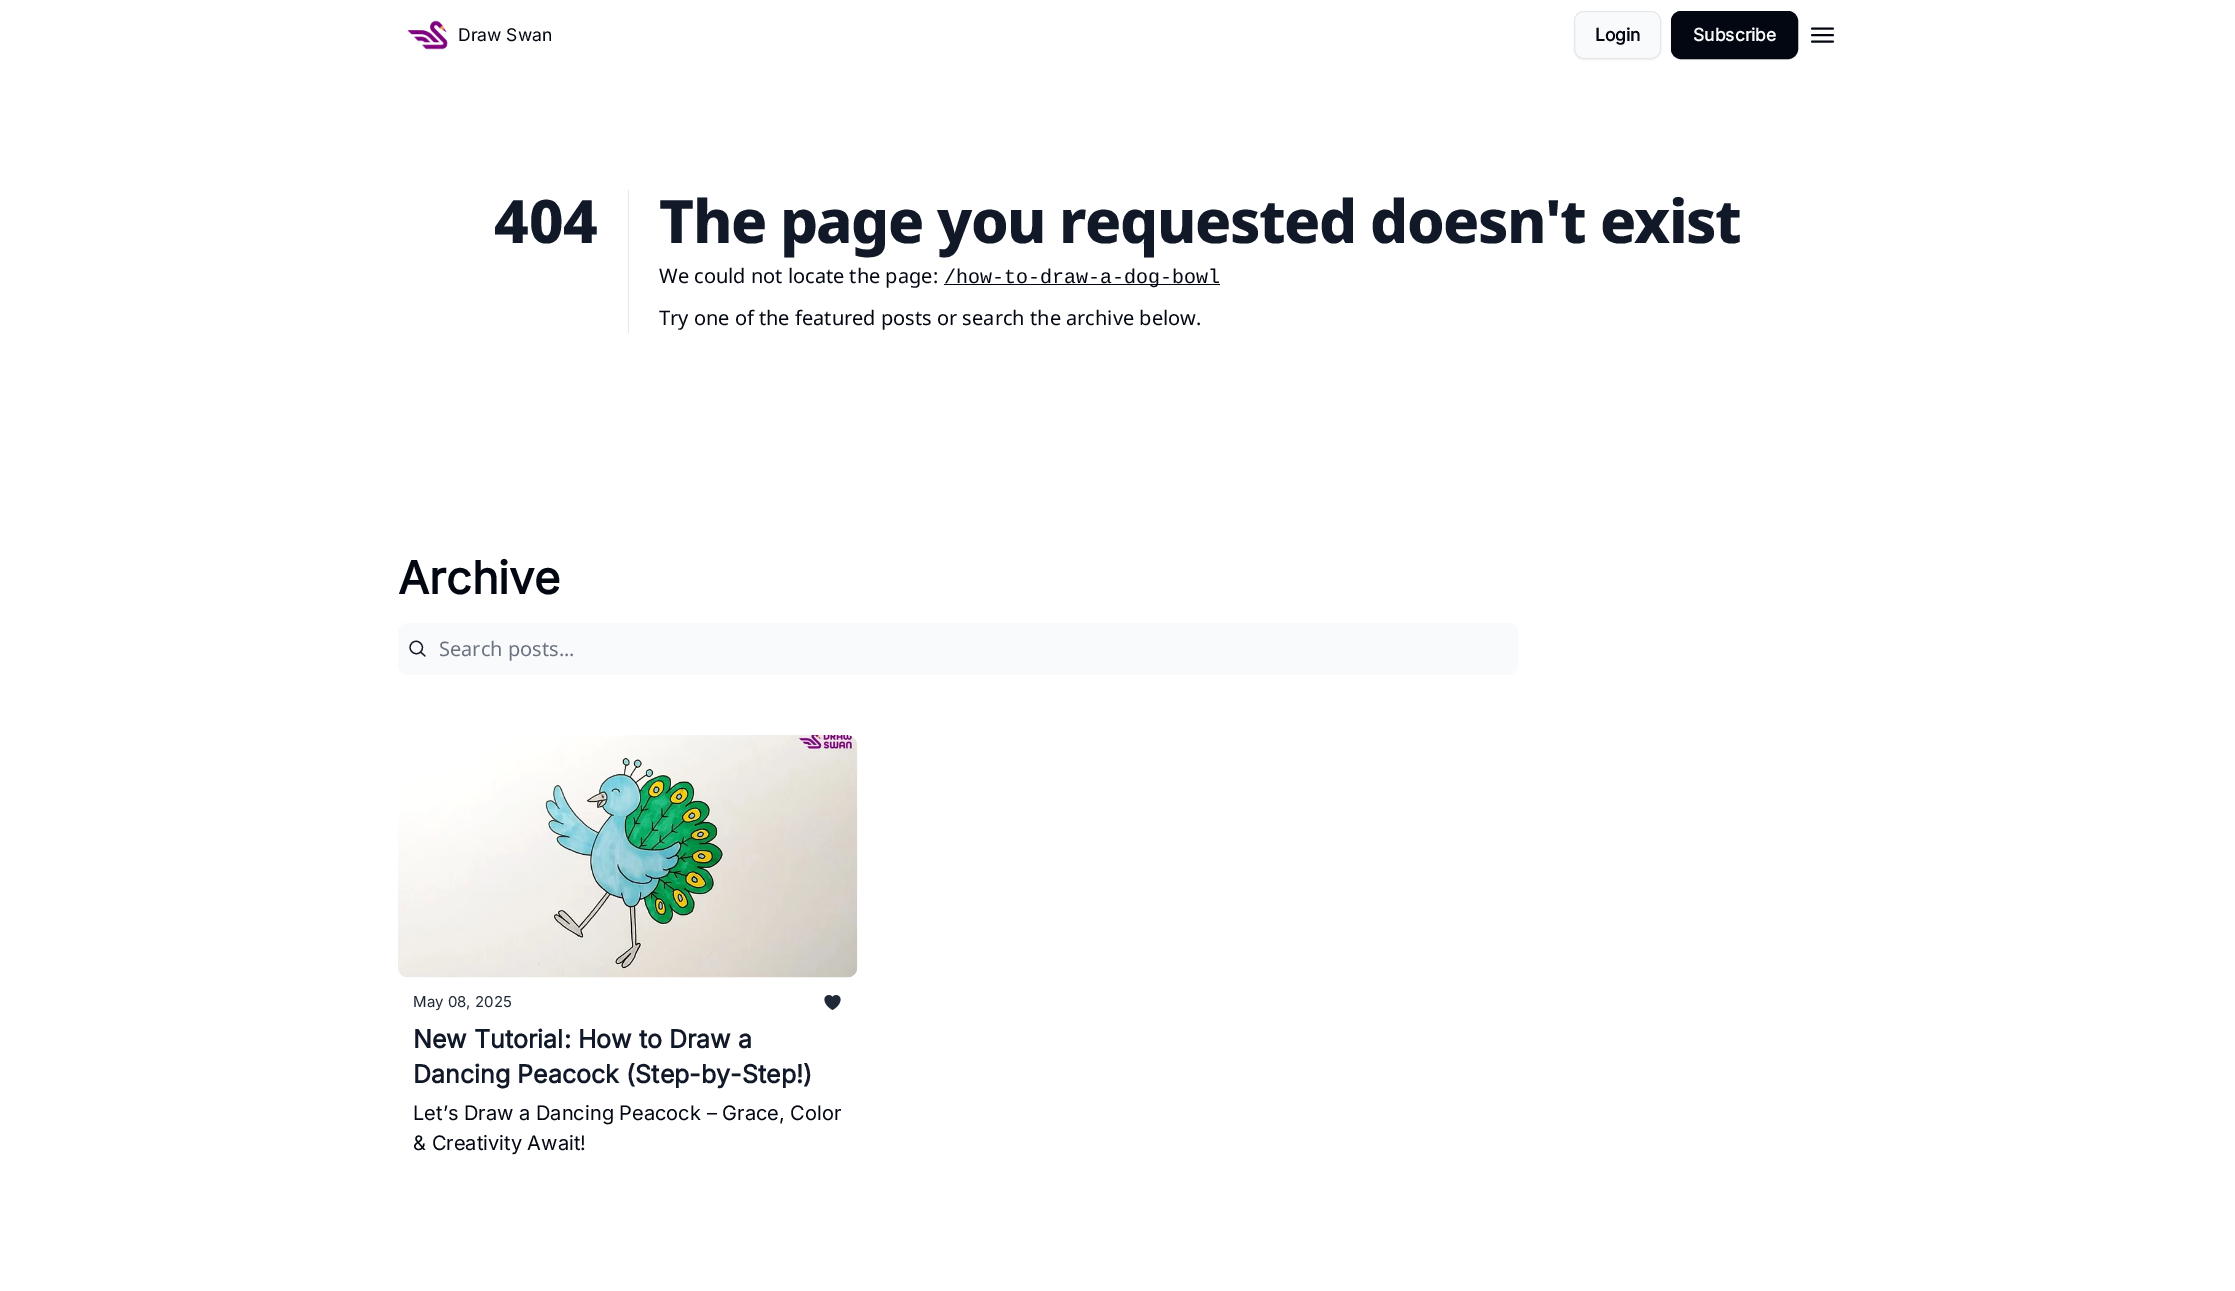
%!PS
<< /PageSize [2235 1291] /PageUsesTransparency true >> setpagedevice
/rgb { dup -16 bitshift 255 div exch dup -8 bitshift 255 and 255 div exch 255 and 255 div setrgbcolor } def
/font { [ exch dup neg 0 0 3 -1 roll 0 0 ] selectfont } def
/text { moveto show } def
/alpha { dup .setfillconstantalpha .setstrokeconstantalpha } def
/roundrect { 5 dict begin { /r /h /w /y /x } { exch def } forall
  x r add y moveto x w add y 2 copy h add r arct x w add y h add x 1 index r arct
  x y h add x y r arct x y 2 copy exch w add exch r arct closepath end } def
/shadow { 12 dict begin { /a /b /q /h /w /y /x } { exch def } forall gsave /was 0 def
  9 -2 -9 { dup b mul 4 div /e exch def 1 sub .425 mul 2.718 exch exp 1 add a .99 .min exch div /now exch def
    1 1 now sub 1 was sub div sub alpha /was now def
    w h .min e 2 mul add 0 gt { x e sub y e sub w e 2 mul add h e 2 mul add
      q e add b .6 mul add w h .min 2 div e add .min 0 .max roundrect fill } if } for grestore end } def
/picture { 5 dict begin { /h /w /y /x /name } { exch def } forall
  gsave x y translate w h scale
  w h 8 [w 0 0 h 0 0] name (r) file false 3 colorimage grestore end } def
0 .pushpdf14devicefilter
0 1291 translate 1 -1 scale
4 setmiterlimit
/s1 { /Inter-Regular 17.5 font 16#030712 rgb } def
/s2 { /Inter-Bold 17.5 font 16#030712 rgb } def
/s3 { /Inter-Bold 17.5 font 16#F9FAFB rgb } def
/s4 { /NotoSans-ExtraBold 60 font 16#111827 rgb } def
/s5 { /NotoSans-Regular 20 font 16#030712 rgb } def
/s6 { /LiberationMono-Regular 20 font 16#030712 rgb } def
/s7 { /Inter-Bold 45 font 16#030712 rgb } def
/s8 { /NotoSans-Regular 20 font 16#6B7280 rgb } def
/s9 { /Inter-Regular 15 font 16#1F2937 rgb } def
/s10 { /Inter-Bold 25 font 16#111827 rgb } def
/s11 { /Inter-Regular 20 font 16#030712 rgb } def
16#FFFFFF rgb
0 0 2235 1291 rectfill
(pic1.raw) 407 20 41 30 picture
s1
(Draw Swan) 458 41 text
16#000000 rgb
1574 13 87 47 10 1 0.05 shadow
16#F9FAFB rgb
1574.5 11.5 86 47 9.5 roundrect gsave fill grestore
16#E5E7EB rgb
stroke
s2
(Login) 1595 41 text
16#000000 rgb
1671 13 127 47 10 1 0.05 shadow
16#030712 rgb
1671.5 11.5 126 47 9.5 roundrect gsave fill grestore
stroke
s3
(Subscribe) 1693 41 text
16#030712 rgb
1.9 setlinewidth
1 setlinecap
1 setlinejoin
1812 28.5 moveto 1833 28.5 lineto 1812 35 moveto 1833 35 lineto 1812 41.5 moveto 1833 41.5 lineto stroke
s4
(404) 494 243 text
16#E5E7EB rgb
628 190 1 143 rectfill
16#111827 rgb
659 243 moveto -1.5 0 (The page you requested doesn't exist) ashow
s5
(We could not locate the page:) 659 283 text
944 284 276 1 rectfill
s6
(/how-to-draw-a-dog-bowl) 944 283 text
s5
(Try one of the featured posts or search the archive below.) 659 325 text
s7
(Archive) 398 594 text
16#F9FAFB rgb
398 623 1120 52 10 roundrect fill
16#111827 rgb
1.2 setlinewidth
425 656 moveto 420.5 652 lineto 420.5 652 moveto 426.5 646 417.5 637.5 412 643 curveto 406 649 415 657.5 420.5 652 curveto closepath stroke
s8
(Search posts...) 439 656 text
(pic2.raw) 398 735 460 243 picture
s9
(May 08, 2025) 413 1007 text
(pic3.raw) 824 995 17 15 picture
s10
(New Tutorial: How to Draw a) 413 1048 text
(Dancing Peacock \(Step-by-Step!\)) 413 1083 text
s11
(Let’s Draw a Dancing Peacock – Grace, Color) 413 1120 text
(& Creativity Await!) 413 1150 text
.poppdf14devicefilter showpage
